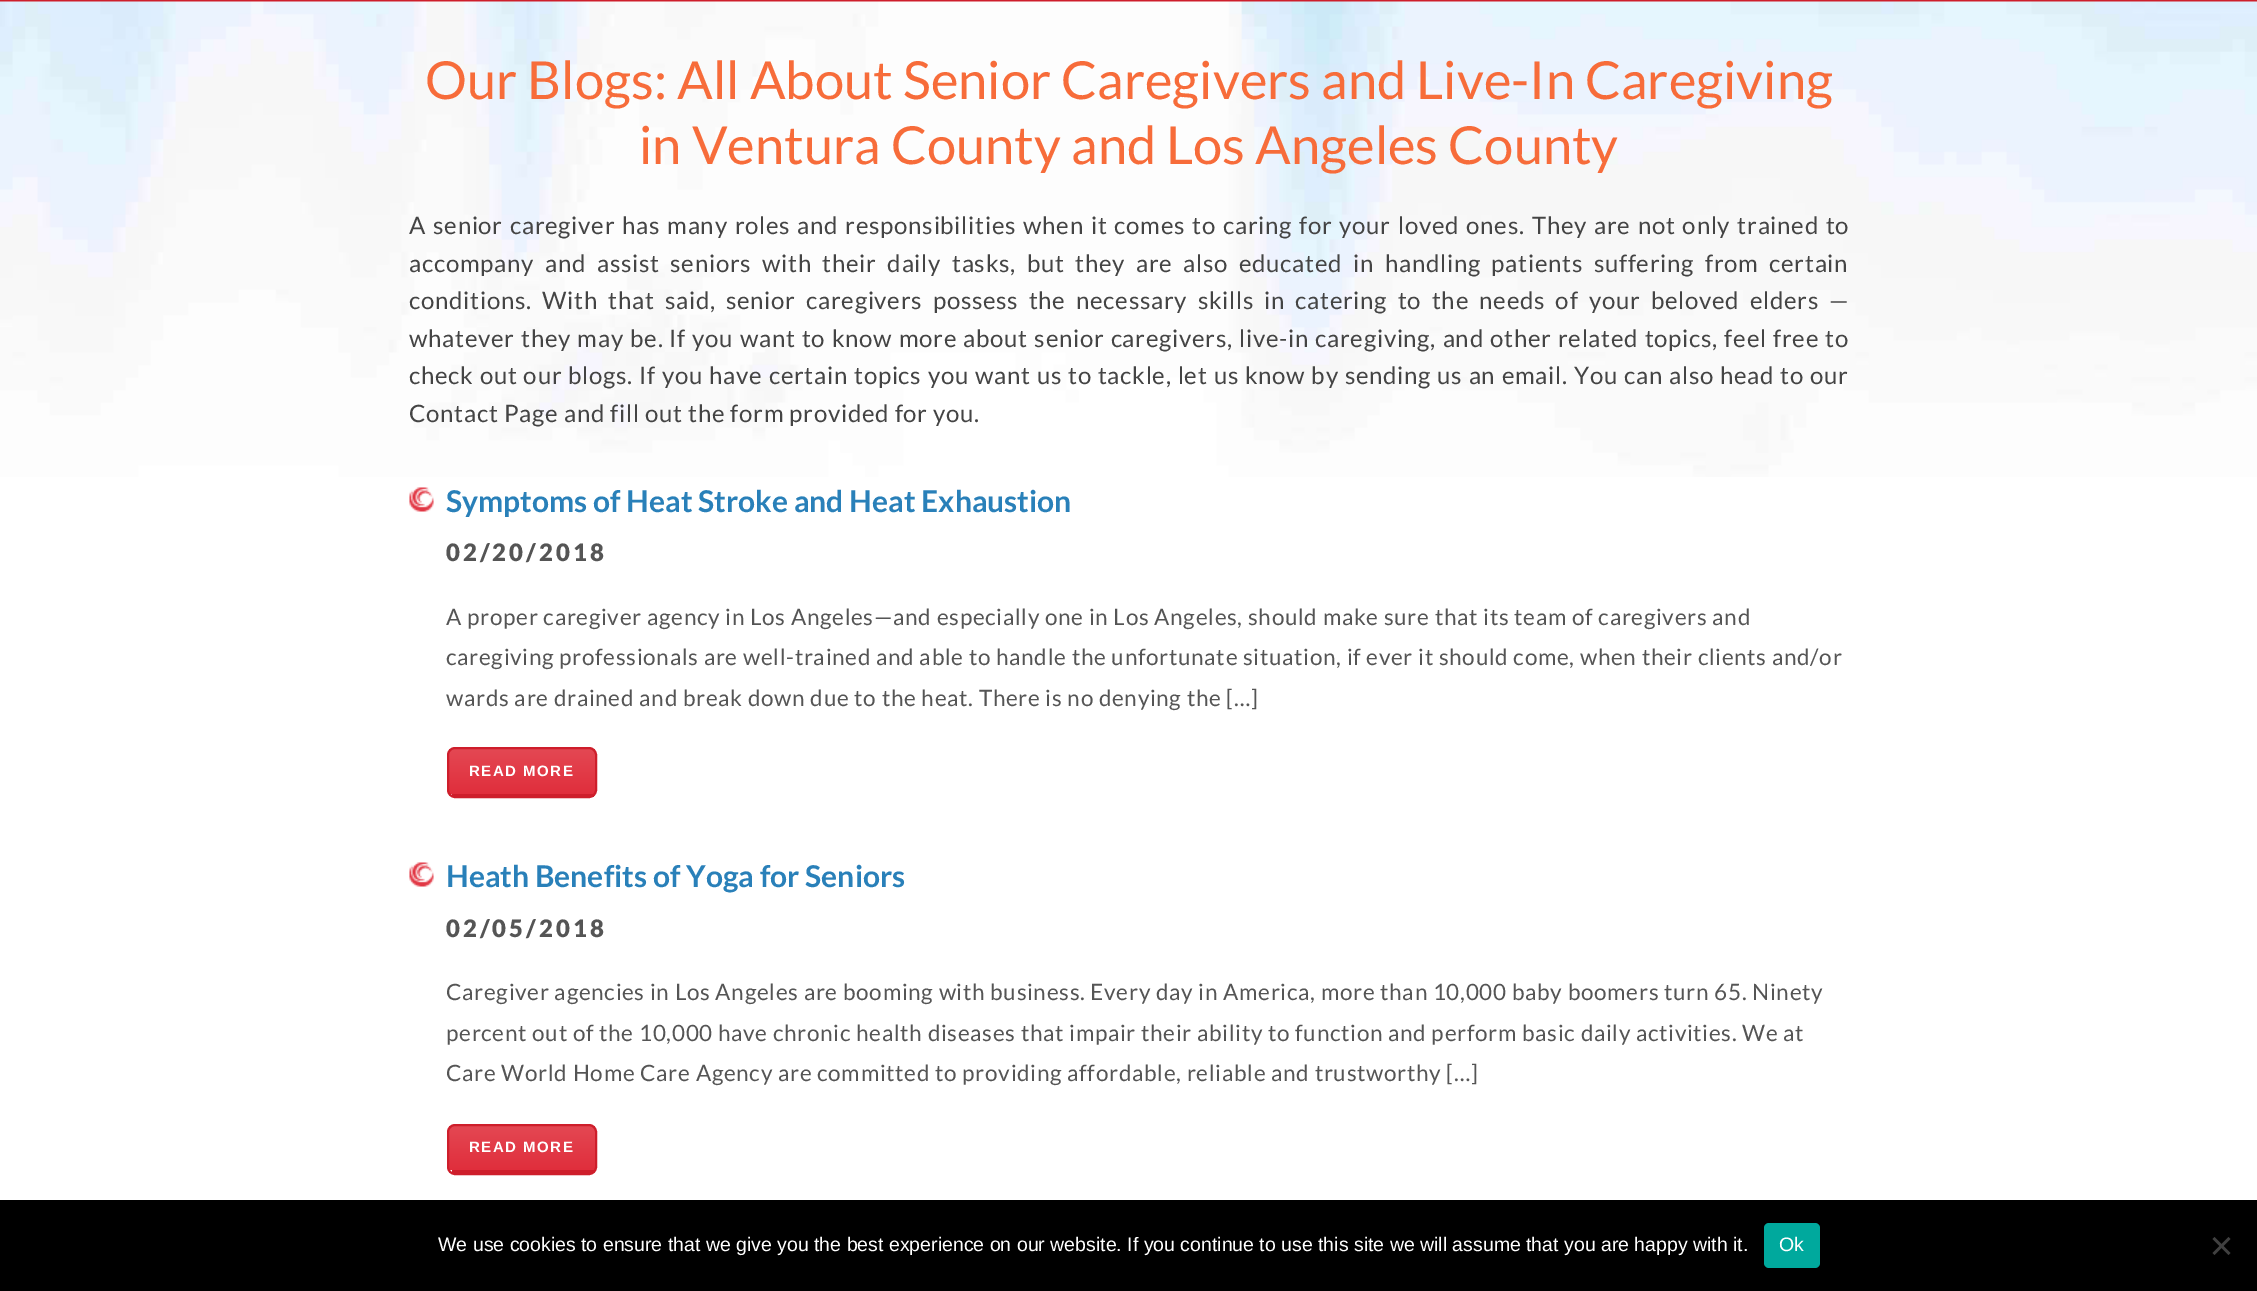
%!PS
<< /PageSize [2257 1291] >> setpagedevice
/rgb { dup -16 bitshift 255 div exch dup -8 bitshift 255 and 255 div exch 255 and 255 div setrgbcolor } def
/font { [ exch dup neg 0 0 3 -1 roll 0 0 ] selectfont } def
/text { moveto show } def
/roundrect { 5 dict begin { /r /h /w /y /x } { exch def } forall
  x r add y moveto x w add y 2 copy h add r arct x w add y h add x 1 index r arct
  x y h add x y r arct x y 2 copy exch w add exch r arct closepath end } def
/picture { 5 dict begin { /h /w /y /x /name } { exch def } forall
  gsave x y translate w h scale
  w h 8 [w 0 0 h 0 0] name (r) file false 3 colorimage grestore end } def
0 1291 translate 1 -1 scale
4 setmiterlimit
/s1 { /Lato-Regular 52.5 font 16#F76C3A rgb } def
/s2 { /Lato-Bold 30 font 16#2980B9 rgb } def
/s3 { /LiberationSans-Regular 19.5 font 16#FFFFFF rgb } def
16#FFFFFF rgb
0 0 2257 1291 rectfill
16#CE1E2B rgb
0 0 2257 2 rectfill
(pic1.raw) 0 1 2257 476 picture
s1
(Our Blogs: All About Senior Caregivers and Live-In Caregiving) 425 99 text
(in Ventura County and Los Angeles County) 639 164 text
/Lato-Regular 24 font
16#444444 rgb
409 234 moveto 1.7 0 32 0.72 0 (A senior caregiver has many roles and responsibilities when it comes to caring for your loved ones. They are not only trained to) awidthshow
409 272 moveto 5.4 0 32 0.72 0 (accompany and assist seniors with their daily tasks, but they are also educated in handling patients suffering from certain) awidthshow
409 309 moveto 5 0 32 0.72 0 (conditions. With that said, senior caregivers possess the necessary skills in catering to the needs of your beloved elders —) awidthshow
409 347 moveto 1 0 32 0.72 0 (whatever they may be.) awidthshow
669 347 moveto 1 0 32 0.72 0 (If you want to know more about senior caregivers, live-in caregiving, and other related topics, feel free to) awidthshow
409 384 moveto 0.75 0 32 0.72 0 (check out our blogs. If you have certain topics you want us to tackle, let us know by sending us an email. You can also head to our) awidthshow
409 422 moveto 0.72 0 (Contact Page and fill out the form provided for you.) ashow
(pic2.raw) 409 487 25 25 picture
s2
(Symptoms of Heat Stroke and Heat Exhaustion) 446 512 text
/Lato-Black 24 font
16#555555 rgb
446 561 moveto 3 0 (02/20/2018) ashow
/Lato-Regular 22.5 font
446 625 moveto 0.68 0 (A proper caregiver agency in Los Angeles—and especially one in Los Angeles, should make sure that its team of caregivers and) ashow
446 665 moveto 0.68 0 (caregiving professionals are well-trained and able to handle the unfortunate situation, if ever it should come, when their clients and/or) ashow
446 706 moveto 0.68 0 (wards are drained and break down due to the heat. There is no denying the […]) ashow
gsave 454 748 moveto 590 748 lineto 593 748 596 751 596 754 curveto 596 790 lineto 596 792 593 794 590 794 curveto 454 794 lineto 451 794 448 792 448 790 curveto 448 754 lineto 448 751 451 748 454 748 curveto closepath clip newpath
<< /ShadingType 2 /ColorSpace /DeviceRGB /Coords [522 794 522 749] /Extend [true true] /Function << /FunctionType 2 /Domain [0 1] /C0 [0.878 0.18 0.235] /C1 [0.894 0.282 0.325] /N 1 >> >> shfill grestore
16#CE1E2B rgb
2 setlinewidth
448 748 148 49 7 roundrect stroke
452 794 142 3 rectfill
/LiberationSans-Bold 15 font
16#FFFFFF rgb
469 776 moveto 1.5 0 (READ MORE) ashow
(pic2.raw) 409 862 25 25 picture
s2
(Heath Benefits of Yoga for Seniors) 446 887 text
/Lato-Black 24 font
16#555555 rgb
446 937 moveto 3 0 (02/05/2018) ashow
/Lato-Regular 22.5 font
446 1000 moveto 0.68 0 (Caregiver agencies in Los Angeles are booming with business. Every day in America, more than 10,000 baby boomers turn 65. Ninety) ashow
446 1041 moveto 0.68 0 (percent out of the 10,000 have chronic health diseases that impair their ability to function and perform basic daily activities. We at) ashow
446 1081 moveto 0.68 0 (Care World Home Care Agency are committed to providing affordable, reliable and trustworthy […]) ashow
gsave 454 1125 moveto 590 1125 lineto 593 1125 596 1128 596 1131 curveto 596 1167 lineto 596 1169 593 1170 590 1170 curveto 454 1170 lineto 451 1170 448 1169 448 1167 curveto 448 1131 lineto 448 1128 451 1125 454 1125 curveto closepath clip newpath
<< /ShadingType 2 /ColorSpace /DeviceRGB /Coords [522 1170 522 1125] /Extend [true true] /Function << /FunctionType 2 /Domain [0 1] /C0 [0.878 0.18 0.235] /C1 [0.894 0.282 0.325] /N 1 >> >> shfill grestore
16#CE1E2B rgb
448 1125 148 49 7 roundrect stroke
452 1170 142 3 rectfill
/LiberationSans-Bold 15 font
16#FFFFFF rgb
469 1152 moveto 1.5 0 (READ MORE) ashow
16#000000 rgb
0 1200 2257 91 rectfill
s3
(We use cookies to ensure that we give you the best experience on our website. If you continue to use this site we will assume that you are happy with it.) 438 1251 text
16#00A99D rgb
1764 1223 56 45 5 roundrect fill
s3
(Ok) 1779 1251 text
16#404040 rgb
2228.5 1237 moveto 2230.5 1239 lineto 2214.5 1255 lineto 2212.5 1253 lineto closepath fill
2212.5 1239 moveto 2214.5 1237 lineto 2230.5 1253 lineto 2228.5 1255 lineto closepath fill
showpage
